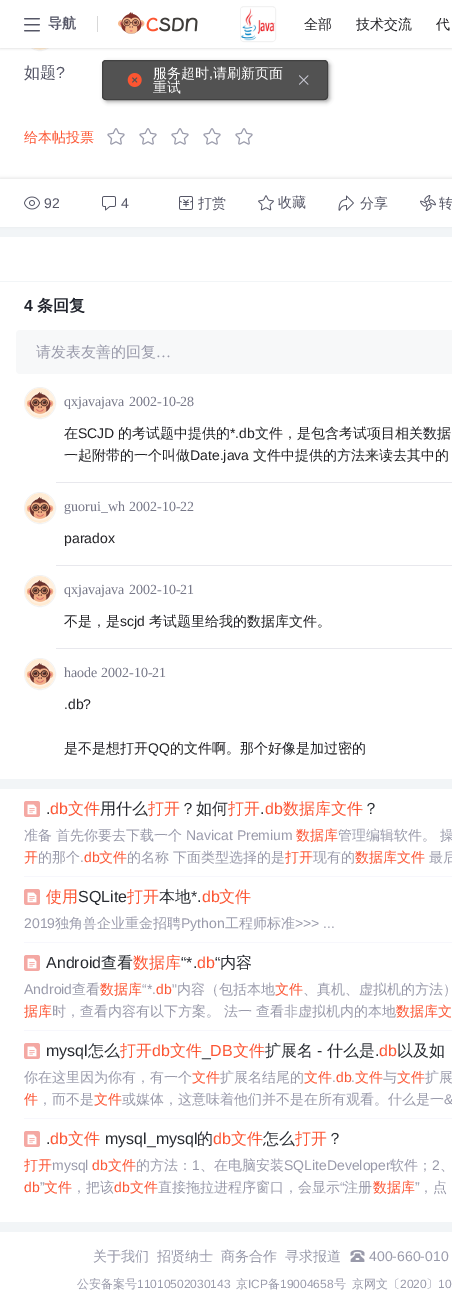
%!PS
<< /PageSize [452 1296] /PageUsesTransparency true >> setpagedevice
/rgb { dup -16 bitshift 255 div exch dup -8 bitshift 255 and 255 div exch 255 and 255 div setrgbcolor } def
/font { [ exch dup neg 0 0 3 -1 roll 0 0 ] selectfont } def
/text { moveto show } def
/alpha { dup .setfillconstantalpha .setstrokeconstantalpha } def
/circle { newpath 0 360 arc closepath } def
/roundrect { 5 dict begin { /r /h /w /y /x } { exch def } forall
  x r add y moveto x w add y 2 copy h add r arct x w add y h add x 1 index r arct
  x y h add x y r arct x y 2 copy exch w add exch r arct closepath end } def
/shadow { 12 dict begin { /a /b /q /h /w /y /x } { exch def } forall gsave /was 0 def
  9 -2 -9 { dup b mul 4 div /e exch def 1 sub .425 mul 2.718 exch exp 1 add a .99 .min exch div /now exch def
    1 1 now sub 1 was sub div sub alpha /was now def
    w h .min e 2 mul add 0 gt { x e sub y e sub w e 2 mul add h e 2 mul add
      q e add b .6 mul add w h .min 2 div e add .min 0 .max roundrect fill } if } for grestore end } def
/picture { 5 dict begin { /h /w /y /x /name } { exch def } forall
  gsave x y translate w h scale
  w h 8 [w 0 0 h 0 0] name (r) file false 3 colorimage grestore end } def
0 .pushpdf14devicefilter
0 1296 translate 1 -1 scale
4 setmiterlimit
/s1 { /WenQuanYiZenHei-Bold 14 font 16#555666 rgb } def
/s2 { /WenQuanYiZenHei-Medium 14 font 16#222226 rgb } def
/s3 { /WenQuanYiZenHei-Medium 16 font 16#555666 rgb } def
/s4 { /LiberationSans-Regular 16 font 16#555666 rgb } def
/s5 { /WenQuanYiZenHei-Medium 14 font 16#FC5533 rgb } def
/s6 { /LiberationSans-Regular 14 font 16#555666 rgb } def
/s7 { /WenQuanYiZenHei-Medium 14 font 16#555666 rgb } def
/s8 { /LiberationSans-Bold 16 font 16#20232C rgb } def
/s9 { /WenQuanYiZenHei-Bold 16 font 16#20232C rgb } def
/s10 { /WenQuanYiZenHei-Medium 15 font 16#999AAA rgb } def
/s11 { /LiberationSerif-Regular 15 font 16#999AAA rgb } def
/s12 { /LiberationSerif-Regular 14 font 16#777888 rgb } def
/s13 { /LiberationSans-Regular 14 font 16#222226 rgb } def
/s14 { /LiberationSans-Regular 16 font 16#282B31 rgb } def
/s15 { /LiberationSans-Regular 16 font 16#FC5533 rgb } def
/s16 { /WenQuanYiZenHei-Medium 16 font 16#FC5533 rgb } def
/s17 { /WenQuanYiZenHei-Medium 16 font 16#282B31 rgb } def
/s18 { /WenQuanYiZenHei-Medium 14 font 16#999AAA rgb } def
/s19 { /LiberationSans-Regular 14 font 16#999AAA rgb } def
/s20 { /LiberationSans-Regular 14 font 16#FC5533 rgb } def
/s21 { /WenQuanYiZenHei-Medium 12 font 16#999AAA rgb } def
/s22 { /LiberationSans-Regular 12 font 16#999AAA rgb } def
/s23 { /WenQuanYiZenHei-Medium 14 font 16#FFFFFF rgb } def
/s24 { /LiberationSans-Regular 14 font 16#FFFFFF rgb } def
16#F2F5F7 rgb
0 0 452 1296 rectfill
16#FFFFFF rgb
0 48 452 131 rectfill
16#F2F2F2 rgb
40 35 15.5 circle stroke
(pic4.raw) 33 48 14 2 picture
16#000000 rgb
0 1 452 48 0 1 0.1 shadow
16#FFFFFF rgb
0 0 452 48 rectfill
(pic1.raw) 24 18 16 14 picture
s1
(导航) 48 28 text
16#D8D8D8 rgb
97 16 1 16 0.5 roundrect fill
(pic2.raw) 118 12 80 22 picture
16#F2F2F2 rgb
240.5 6.5 35 35 3.5 roundrect stroke
(pic3.raw) 241 8 34 33 picture
s2
(全部) 304 29 text
(技术交流) 356 29 text
(代) 436 29 text
s3
(如题) 24 78 text
s4
(?) 56 78 text
s5
(给本帖投票) 24 142 text
(pic5.raw) 107 128 18 17 picture
(pic5.raw) 139 128 18 17 picture
(pic5.raw) 171 128 18 17 picture
(pic5.raw) 203 128 18 17 picture
(pic5.raw) 235 128 18 17 picture
16#121212 rgb
0 178 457 48 0 1.5 0.1 shadow
16#FFFFFF rgb
0 179 452 48 rectfill
(pic6.raw) 24 196 16 14 picture
s6
(92) 44 208 text
(pic7.raw) 102 196 14 15 picture
(4) 121 208 text
(pic8.raw) 179 196 14 14 picture
s7
(打赏) 198 208 text
(pic9.raw) 258 195 16 16 picture
(收藏) 278 207 text
(pic10.raw) 338 195 16 16 picture
(分享) 360 208 text
(pic11.raw) 420 195 16 16 picture
(转) 439 208 text
16#FFFFFF rgb
0 237 452 44 rectfill
0 282 452 497 rectfill
s8
(4) 24 311 text
s9
(条回复) 37 311 text
16#F7F8F9 rgb
16 330 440 44 4 roundrect fill
s10
(请发表友善的回复) 36 357 text
s11
(…) 156 357 text
16#F2F2F2 rgb
40 403 15.5 circle stroke
(pic12.raw) 25 388 30 30 picture
s12
(qxjavajava) 64 406 text
(2002-10-28) 129 406 text
s2
(在) 64 438 text
s13
(SCJD) 78 438 text
s2
(的考试题中提供的) 118 438 text
s13
(*.db) 230 438 text
s2
(文件，是包含考试项目相关数据) 255 438 text
(一起附带的一个叫做) 64 460 text
s13
(Date.java) 190 460 text
s2
(文件中提供的方法来读去其中的) 253 460 text
16#E8E8ED rgb
56 482 396 1 rectfill
16#F2F2F2 rgb
40 508 15.5 circle stroke
(pic12.raw) 25 493 30 30 picture
s12
(guorui_wh) 64 511 text
(2002-10-22) 129 511 text
s13
(paradox) 64 543 text
16#E8E8ED rgb
56 565 396 1 rectfill
16#F2F2F2 rgb
40 591 15.5 circle stroke
(pic12.raw) 25 576 30 30 picture
s12
(qxjavajava) 64 594 text
(2002-10-21) 129 594 text
s2
(不是，是) 64 626 text
s13
(scjd) 120 626 text
s2
(考试题里给我的数据库文件。) 149 626 text
16#E8E8ED rgb
56 648 396 1 rectfill
16#F2F2F2 rgb
40 674 15.5 circle stroke
(pic12.raw) 25 659 30 30 picture
s12
(haode) 64 677 text
(2002-10-21) 101 677 text
s13
(.db?) 64 709 text
s2
(是不是想打开) 64 753 text
s13
(QQ) 148 753 text
s2
(的文件啊。那个好像是加过密的) 170 753 text
16#FFFFFF rgb
0 789 452 433 rectfill
16#F7F7FC rgb
24 876 428 1 rectfill
(pic13.raw) 24 801 16 16 picture
s14
(.) 46 814 text
s15
(db) 50 814 text
s16
(文件) 68 814 text
s17
(用什么) 100 814 text
s16
(打开) 148 814 text
s17
(？如何) 180 814 text
s16
(打开) 228 814 text
s14
(.) 260 814 text
s15
(db) 265 814 text
s16
(数据库文件) 283 814 text
s17
(？) 363 814 text
s18
(准备) 24 840 text
(首先你要去下载一个) 56 840 text
s19
(Navicat Premium) 186 840 text
s5
(数据库) 296 840 text
s18
(管理编辑软件。) 338 840 text
(操) 440 840 text
s5
(开) 24 862 text
s18
(的那个) 38 862 text
s19
(.) 80 862 text
s20
(db) 84 862 text
s5
(文件) 99 862 text
s18
(的名称) 127 862 text
(下面类型选择的是) 173 862 text
s5
(打开) 285 862 text
s18
(现有的) 313 862 text
s5
(数据库文件) 355 862 text
s18
(最后) 429 862 text
16#F7F7FC rgb
24 942 428 1 rectfill
(pic13.raw) 24 889 16 16 picture
s16
(使用) 46 902 text
s14
(SQLite) 78 902 text
s16
(打开) 127 902 text
s17
(本地) 159 902 text
s14
(*.) 191 902 text
s15
(db) 202 902 text
s16
(文件) 219 902 text
s19
(2019) 24 928 text
s18
(独角兽企业重金招聘) 55 928 text
s19
(Python) 181 928 text
s18
(工程师标准) 225 928 text
s19
(>>> ...) 295 928 text
16#F7F7FC rgb
24 1030 428 1 rectfill
(pic13.raw) 24 955 16 16 picture
s14
(Android) 46 968 text
s17
(查看) 101 968 text
s16
(数据库) 133 968 text
s14
(“*.) 181 968 text
s15
(db) 197 968 text
s14
(“) 215 968 text
s17
(内容) 220 968 text
s19
(Android) 24 994 text
s18
(查看) 72 994 text
s5
(数据库) 100 994 text
s19
(“*.) 142 994 text
s20
(db) 156 994 text
s19
(") 172 994 text
s18
(内容（包括本地) 177 994 text
s5
(文件) 275 994 text
s18
(、真机、虚拟机的方法）) 303 994 text
s5
(据库) 24 1016 text
s18
(时，查看内容有以下方案。 法一 查看非虚拟机内的本地) 52 1016 text
s5
(数据库文) 396 1016 text
16#F7F7FC rgb
24 1118 428 1 rectfill
(pic13.raw) 24 1043 16 16 picture
s14
(mysql) 46 1056 text
s17
(怎么) 88 1056 text
s16
(打开) 120 1056 text
s15
(db) 152 1056 text
s16
(文件) 170 1056 text
s15
(DB) 210 1056 text
s16
(文件) 233 1056 text
s17
(扩展名) 265 1056 text
s14
(-) 317 1056 text
s17
(什么是) 327 1056 text
s15
(db) 379 1056 text
s17
(以及如) 397 1056 text
s14
(.) 375 1056 text
(_) 202 1056 text
s18
(你在这里因为你有，有一个) 24 1082 text
s5
(文件) 192 1082 text
s18
(扩展名结尾的) 220 1082 text
s5
(文件) 304 1082 text
s19
(.) 332 1082 text
s20
(db) 336 1082 text
s19
(.) 351 1082 text
s5
(文件) 355 1082 text
s18
(与) 383 1082 text
s5
(文件) 397 1082 text
s18
(扩展) 425 1082 text
s5
(件) 24 1104 text
s18
(，而不是) 38 1104 text
s5
(文件) 94 1104 text
s18
(或媒体，这意味着他们并不是在所有观看。什么是一) 122 1104 text
s19
(&) 444 1104 text
(pic13.raw) 24 1131 16 16 picture
s14
(.) 46 1144 text
s15
(db) 50 1144 text
s16
(文件) 68 1144 text
s14
(mysql_mysql) 105 1144 text
s17
(的) 197 1144 text
s15
(db) 213 1144 text
s16
(文件) 231 1144 text
s17
(怎么) 263 1144 text
s16
(打开) 295 1144 text
s17
(？) 327 1144 text
s5
(打开) 24 1170 text
s19
(mysql) 52 1170 text
s20
(db) 92 1170 text
s5
(文件) 108 1170 text
s18
(的方法：) 136 1170 text
s19
(1) 192 1170 text
s18
(、在电脑安装) 200 1170 text
s19
(SQLiteDeveloper) 284 1170 text
s18
(软件；) 390 1170 text
s19
(2) 432 1170 text
s18
(、) 440 1170 text
s20
(db) 24 1192 text
s19
(”) 40 1192 text
s5
(文件) 44 1192 text
s18
(，把该) 72 1192 text
s20
(db) 114 1192 text
s5
(文件) 130 1192 text
s18
(直接拖拉进程序窗口，会显示) 158 1192 text
s19
(“) 340 1192 text
s18
(注册) 344 1192 text
s5
(数据库) 373 1192 text
s19
(”) 415 1192 text
s18
(，点) 419 1192 text
16#FFFFFF rgb
0 1232 452 64 rectfill
s18
(关于我们) 93 1261 text
(招贤纳士) 157 1261 text
(商务合作) 221 1261 text
(寻求报道) 285 1261 text
(pic14.raw) 350 1250 15 12 picture
s19
(400-660-010) 369 1261 text
s21
(公安备案号) 77 1288 text
s22
(11010502030143) 137 1288 text
s21
(京) 236 1288 text
s22
(ICP) 248 1288 text
s21
(备) 268 1288 text
s22
(19004658) 280 1288 text
s21
(号) 334 1288 text
(京网文〔) 352 1288 text
s22
(2020) 400 1288 text
s21
(〕) 426 1288 text
s22
(10) 438 1288 text
gsave
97 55 moveto 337 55 lineto 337 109 lineto 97 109 lineto closepath 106 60 moveto 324 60 lineto 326 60 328 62 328 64 curveto 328 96 lineto 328 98 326 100 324 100 curveto 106 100 lineto 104 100 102 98 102 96 curveto 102 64 lineto 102 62 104 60 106 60 curveto closepath eoclip newpath
16#000000 rgb
104 62 226 40 4 2 0.33 shadow
grestore
0.9 alpha
16#3F3F3F rgb
102 60 226 40 4 roundrect fill
102.5 60.5 225 39 3.5 roundrect stroke
1 alpha
(pic15.raw) 127 73 15 14 picture
s23
(服务超时) 153 78 text
s24
(,) 209 78 text
s23
(请刷新页面) 213 78 text
(重试) 153 92 text
(pic16.raw) 299 75 10 10 picture
.poppdf14devicefilter showpage
